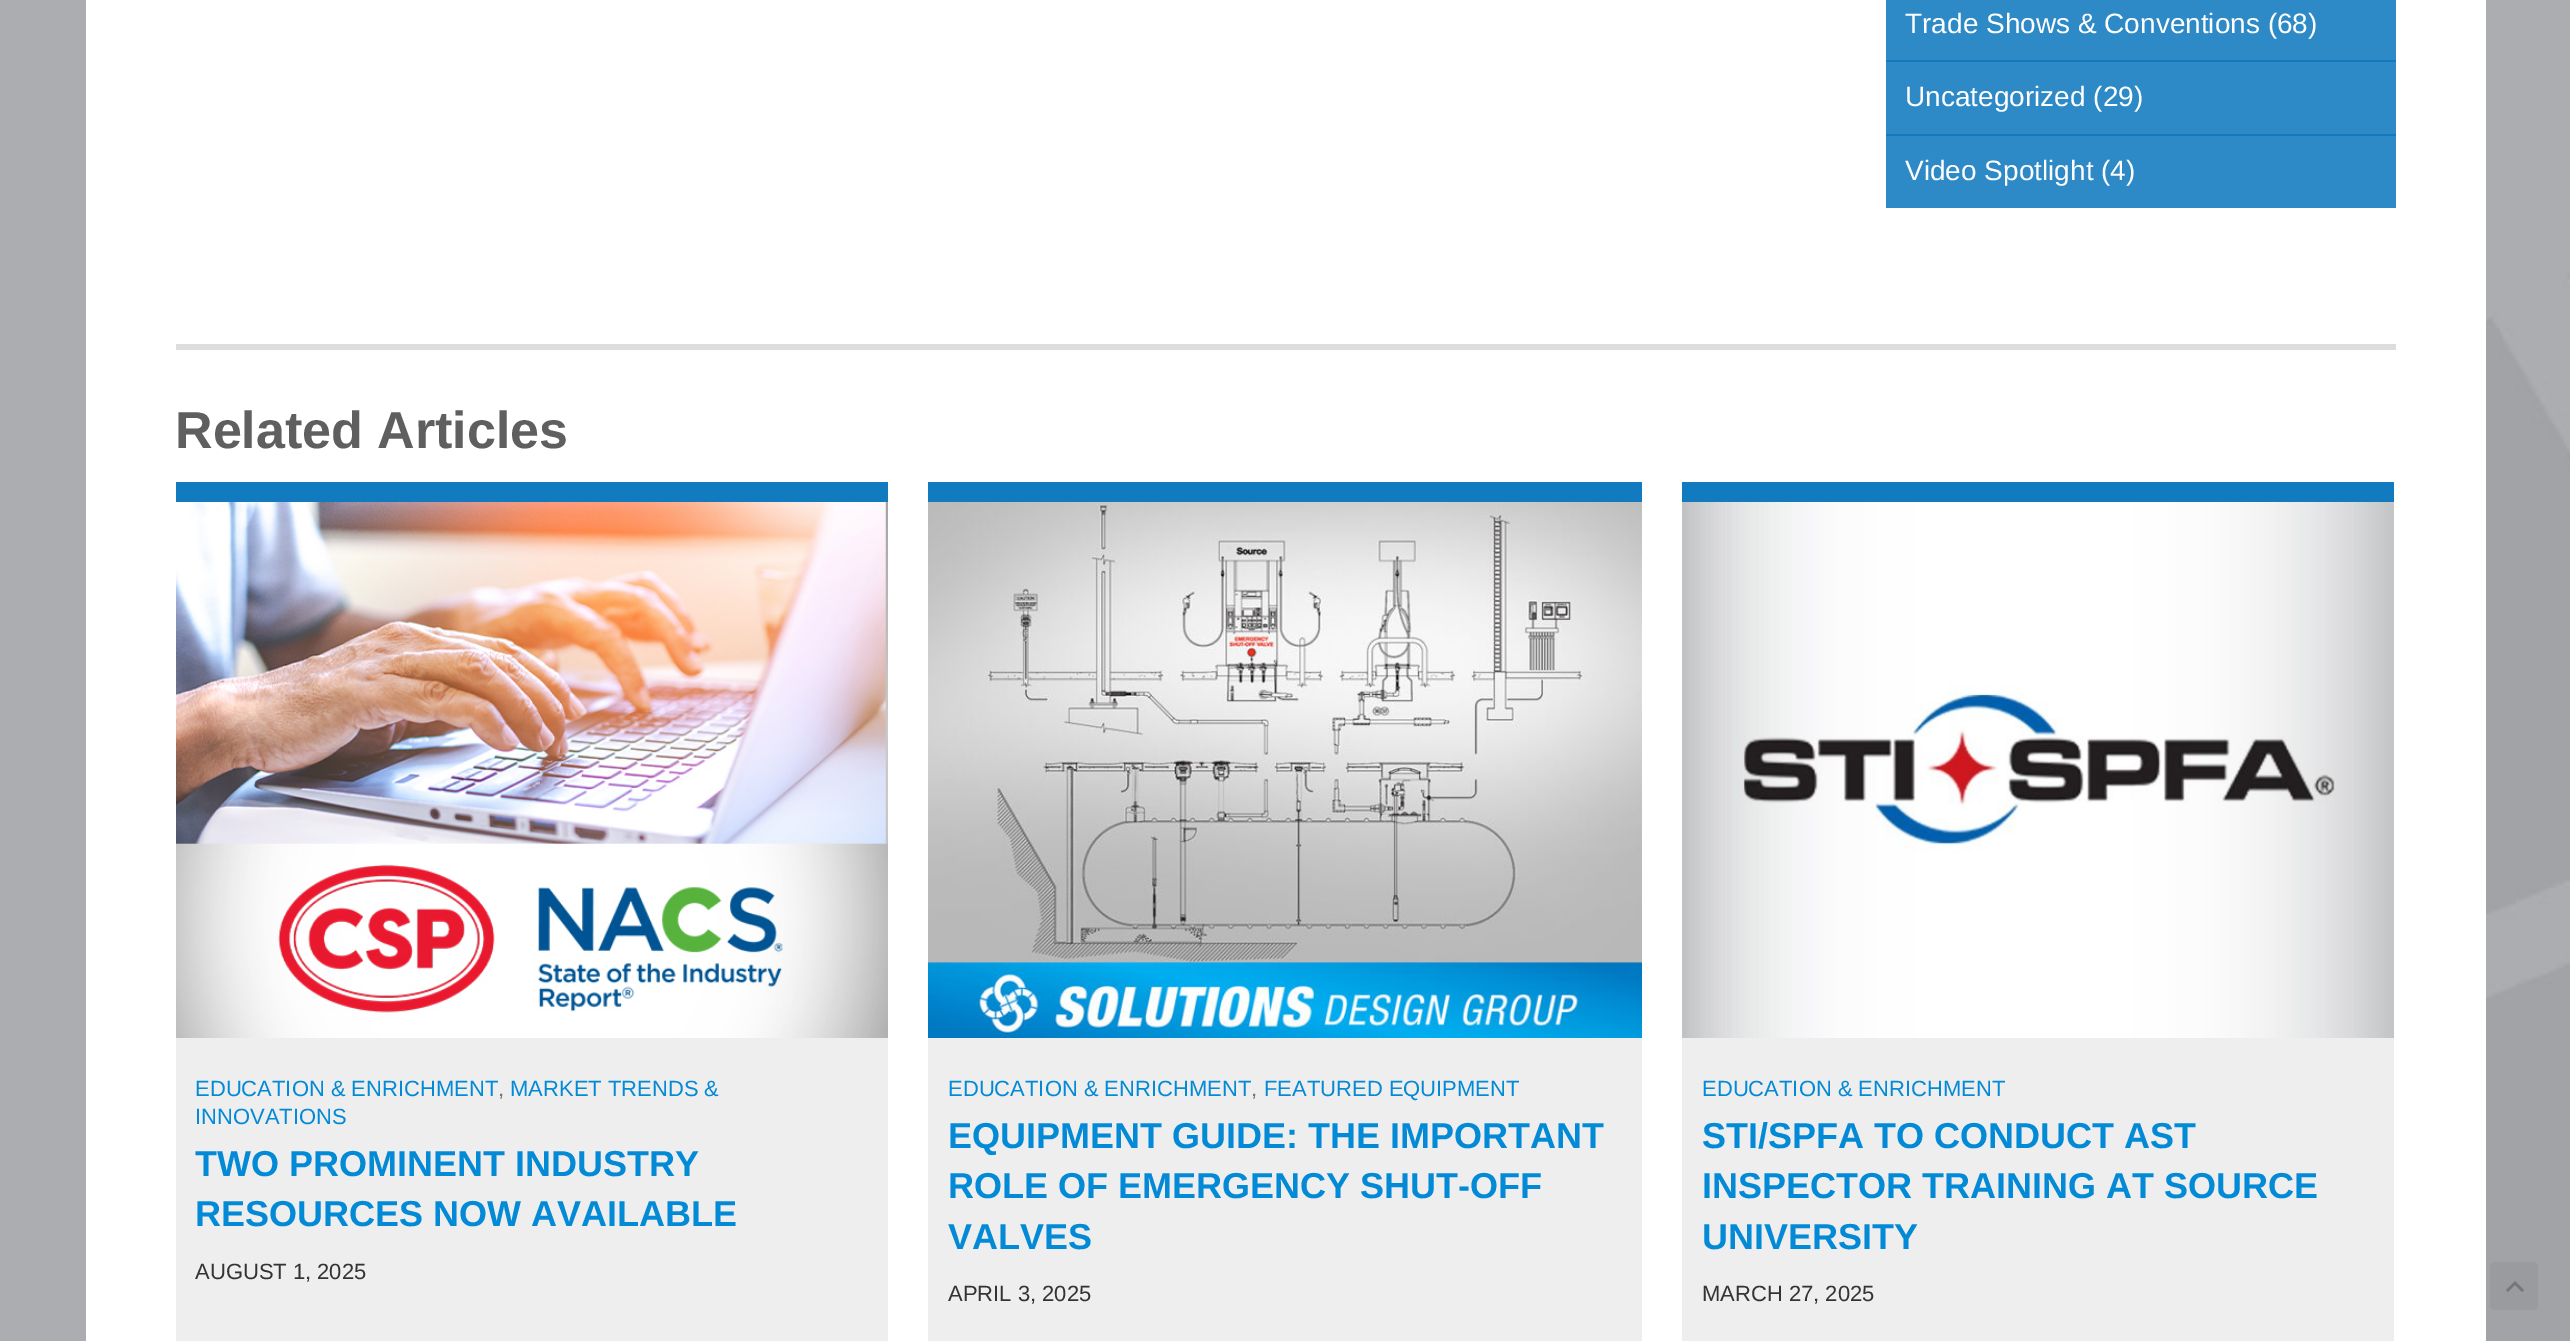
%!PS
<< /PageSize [2570 1341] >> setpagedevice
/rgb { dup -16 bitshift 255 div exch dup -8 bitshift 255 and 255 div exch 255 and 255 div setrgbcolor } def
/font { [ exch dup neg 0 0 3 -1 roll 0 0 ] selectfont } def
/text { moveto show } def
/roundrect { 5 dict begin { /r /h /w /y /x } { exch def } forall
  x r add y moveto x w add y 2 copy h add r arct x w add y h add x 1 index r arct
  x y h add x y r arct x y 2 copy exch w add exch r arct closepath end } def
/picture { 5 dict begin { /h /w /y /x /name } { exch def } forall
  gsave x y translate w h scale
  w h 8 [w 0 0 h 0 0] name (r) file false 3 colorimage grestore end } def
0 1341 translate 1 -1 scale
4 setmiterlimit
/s1 { /LiberationSans-Regular 28 font 16#FFFFFF rgb } def
/s2 { /LiberationSans-Bold 52 font 16#5F5F5F rgb } def
/s3 { /LiberationSans-Regular 22 font 16#038AD6 rgb } def
/s4 { /LiberationSans-Regular 22 font 16#757575 rgb } def
/s5 { /LiberationSans-Bold 36 font 16#038AD6 rgb } def
/s6 { /LiberationSans-Regular 22 font 16#333333 rgb } def
16#ABADB0 rgb
0 0 2570 1341 rectfill
(pic1.raw) 2486 0 84 1341 picture
16#FFFFFF rgb
86 0 2400 1341 rectfill
16#2E8AC6 rgb
1886 0 510 60 rectfill
16#127BBF rgb
1886 60 510 2 rectfill
s1
(Trade Shows & Conventions \(68\)) 1905 33 text
16#2E8AC6 rgb
1886 62 510 72 rectfill
16#127BBF rgb
1886 134 510 2 rectfill
s1
(Uncategorized \(29\)) 1905 106 text
16#2E8AC6 rgb
1886 136 510 72 rectfill
s1
(Video Spotlight \(4\)) 1905 180 text
16#DDDDDD rgb
176 344 2220 6 rectfill
s2
(Related Articles) 175 448 text
16#EEEEEE rgb
176 1038 712 303 rectfill
16#127BBF rgb
176 482 712 20 rectfill
(pic2.raw) 176 502 712 536 picture
s3
(EDUCATION & ENRICHMENT) 195 1096 text
s4
(,) 498 1096 text
s3
(MARKET TRENDS &) 510 1096 text
(INNOVATIONS) 195 1124 text
s5
(TWO PROMINENT INDUSTRY) 195 1176 text
(RESOURCES NOW AVAILABLE) 195 1226 text
s6
(AUGUST 1, 2025) 195 1279 text
16#EEEEEE rgb
928 1038 714 303 rectfill
16#127BBF rgb
928 482 714 20 rectfill
(pic3.raw) 928 502 714 536 picture
s3
(EDUCATION & ENRICHMENT) 948 1096 text
s4
(,) 1251 1096 text
s3
(FEATURED EQUIPMENT) 1264 1096 text
s5
(EQUIPMENT GUIDE: THE IMPORTANT) 948 1148 text
(ROLE OF EMERGENCY SHUT-OFF) 948 1198 text
(VALVES) 948 1249 text
s6
(APRIL 3, 2025) 948 1301 text
16#EEEEEE rgb
1682 1038 712 303 rectfill
16#127BBF rgb
1682 482 712 20 rectfill
(pic4.raw) 1682 502 712 536 picture
s3
(EDUCATION & ENRICHMENT) 1702 1096 text
s5
(STI/SPFA TO CONDUCT AST) 1702 1148 text
(INSPECTOR TRAINING AT SOURCE) 1702 1198 text
(UNIVERSITY) 1702 1249 text
s6
(MARCH 27, 2025) 1702 1301 text
16#9A9B9F rgb
2490 1262 48 48 5 roundrect fill
16#77777A rgb
2522 1292 moveto 2515 1285 lineto 2508 1292 lineto 2506 1290 lineto 2515 1281 lineto 2524 1290 lineto closepath fill
showpage
